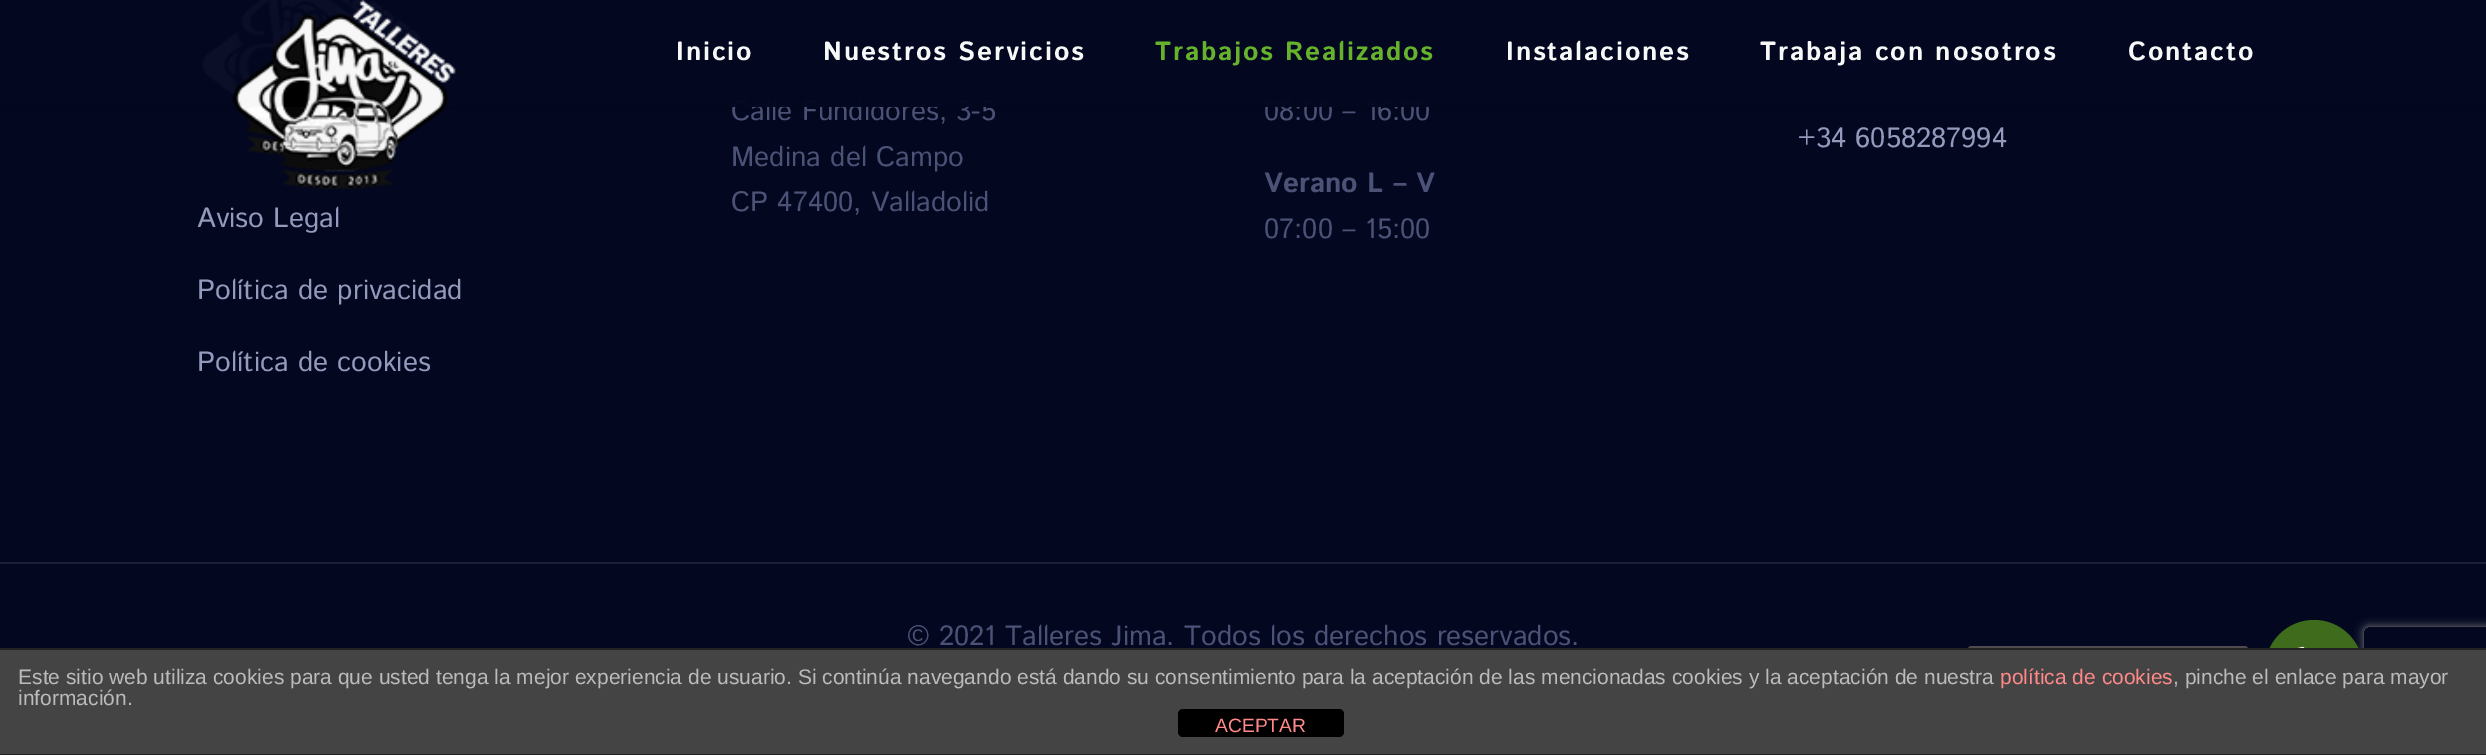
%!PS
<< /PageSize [2486 755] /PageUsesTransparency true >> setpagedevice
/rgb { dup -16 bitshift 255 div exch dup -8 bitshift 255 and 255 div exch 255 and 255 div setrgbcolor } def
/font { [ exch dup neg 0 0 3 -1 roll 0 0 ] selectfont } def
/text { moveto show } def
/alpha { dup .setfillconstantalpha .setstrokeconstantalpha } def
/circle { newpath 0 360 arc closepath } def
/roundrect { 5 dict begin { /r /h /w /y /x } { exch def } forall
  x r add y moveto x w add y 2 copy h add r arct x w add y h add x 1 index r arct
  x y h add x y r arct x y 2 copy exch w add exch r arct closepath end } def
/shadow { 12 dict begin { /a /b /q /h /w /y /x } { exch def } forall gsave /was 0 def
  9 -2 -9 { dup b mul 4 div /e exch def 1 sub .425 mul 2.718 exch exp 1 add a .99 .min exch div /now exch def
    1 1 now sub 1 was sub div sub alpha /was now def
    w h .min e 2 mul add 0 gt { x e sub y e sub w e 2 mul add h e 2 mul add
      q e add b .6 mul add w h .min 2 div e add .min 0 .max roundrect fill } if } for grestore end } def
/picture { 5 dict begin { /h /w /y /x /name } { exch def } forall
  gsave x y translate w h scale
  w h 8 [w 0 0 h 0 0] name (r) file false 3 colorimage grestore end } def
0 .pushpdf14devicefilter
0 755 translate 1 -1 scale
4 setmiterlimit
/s1 { /IstokWeb-Regular 28 font 16#4C5276 rgb } def
/s2 { /IstokWeb-Bold 28 font 16#4C5276 rgb } def
/s3 { /IstokWeb-Regular 28 font 16#949ABB rgb } def
/s4 { /LiberationSans-Regular 21 font 16#BBBBBB rgb } def
/s5 { /LiberationSans-Regular 21 font 16#FF8888 rgb } def
/s6 { /LiberationSans-Regular 19.25 font 16#FF8888 rgb } def
16#030720 rgb
0 0 2486 755 rectfill
(pic2.raw) 197 0 224 156 picture
gsave
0 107 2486 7 rectclip
16#000000 rgb
0 4 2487 106 0 4.5 0.1 shadow
grestore
s1
(Calle Fundidores, 3-5) 731 120 text
(08:00 – 16:00) 1264 120 text
0.97 alpha
16#030720 rgb
197 0 1233 107 rectfill
1 alpha
(pic1.raw) 232 0 224 189 picture
/IstokWeb-Bold 26.25 font
16#F7F8F8 rgb
676 60 moveto 1.75 0 (Inicio) ashow
823 60 moveto 1.75 0 (Nuestros Servicios) ashow
16#66B22D rgb
1155 60 moveto 1.75 0 (Trabajos Realizados) ashow
16#F7F8F8 rgb
1506 60 moveto 1.75 0 (Instalaciones) ashow
1760 60 moveto 1.75 0 (Trabaja con nosotros) ashow
2128 60 moveto 1.75 0 (Contacto) ashow
s1
(Medina del Campo) 731 166 text
(CP 47400, Valladolid) 731 211 text
s2
(Verano L – V) 1264 192 text
s1
(07:00 – 15:00) 1264 238 text
s3
(+34 6058287994) 1798 147 text
(Aviso Legal) 197 227 text
(Política de privacidad) 197 299 text
(Política de cookies) 197 371 text
16#1C2036 rgb
0 562 2486 2 rectfill
s1
(© 2021 Talleres Jima. Todos los derechos reservados.) 907 645 text
gsave
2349 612 moveto 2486 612 lineto 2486 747 lineto 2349 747 lineto closepath 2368 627 moveto 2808 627 lineto 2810 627 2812 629 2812 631 curveto 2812 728 lineto 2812 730 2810 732 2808 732 curveto 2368 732 lineto 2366 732 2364 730 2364 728 curveto 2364 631 lineto 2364 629 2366 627 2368 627 curveto closepath eoclip newpath
16#808080 rgb
2364 627 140 105 4 4.5 1 shadow
grestore
16#3F6C1C rgb
2314 669 49 circle fill
16#4E4C4C rgb
1967 646 282 47 5 roundrect fill
(pic3.raw) 2297 646 8 2 picture
16#444444 rgb
0 650 2486 104 rectfill
16#222222 rgb
0 648 2486 2 rectfill
0 754 2486 1 rectfill
s4
(Este sitio web utiliza cookies para que usted tenga la mejor experiencia de usuario. Si continúa navegando está dando su consentimiento para la aceptación de las mencionadas cookies y la aceptación de nuestra) 18 684 text
s5
(política de cookies) 2000 684 text
s4
(, pinche el enlace para mayor) 2173 684 text
(información.) 18 705 text
16#000000 rgb
1178 709 166 28 5 roundrect fill
s6
(ACEPTAR) 1215 732 text
.poppdf14devicefilter showpage
